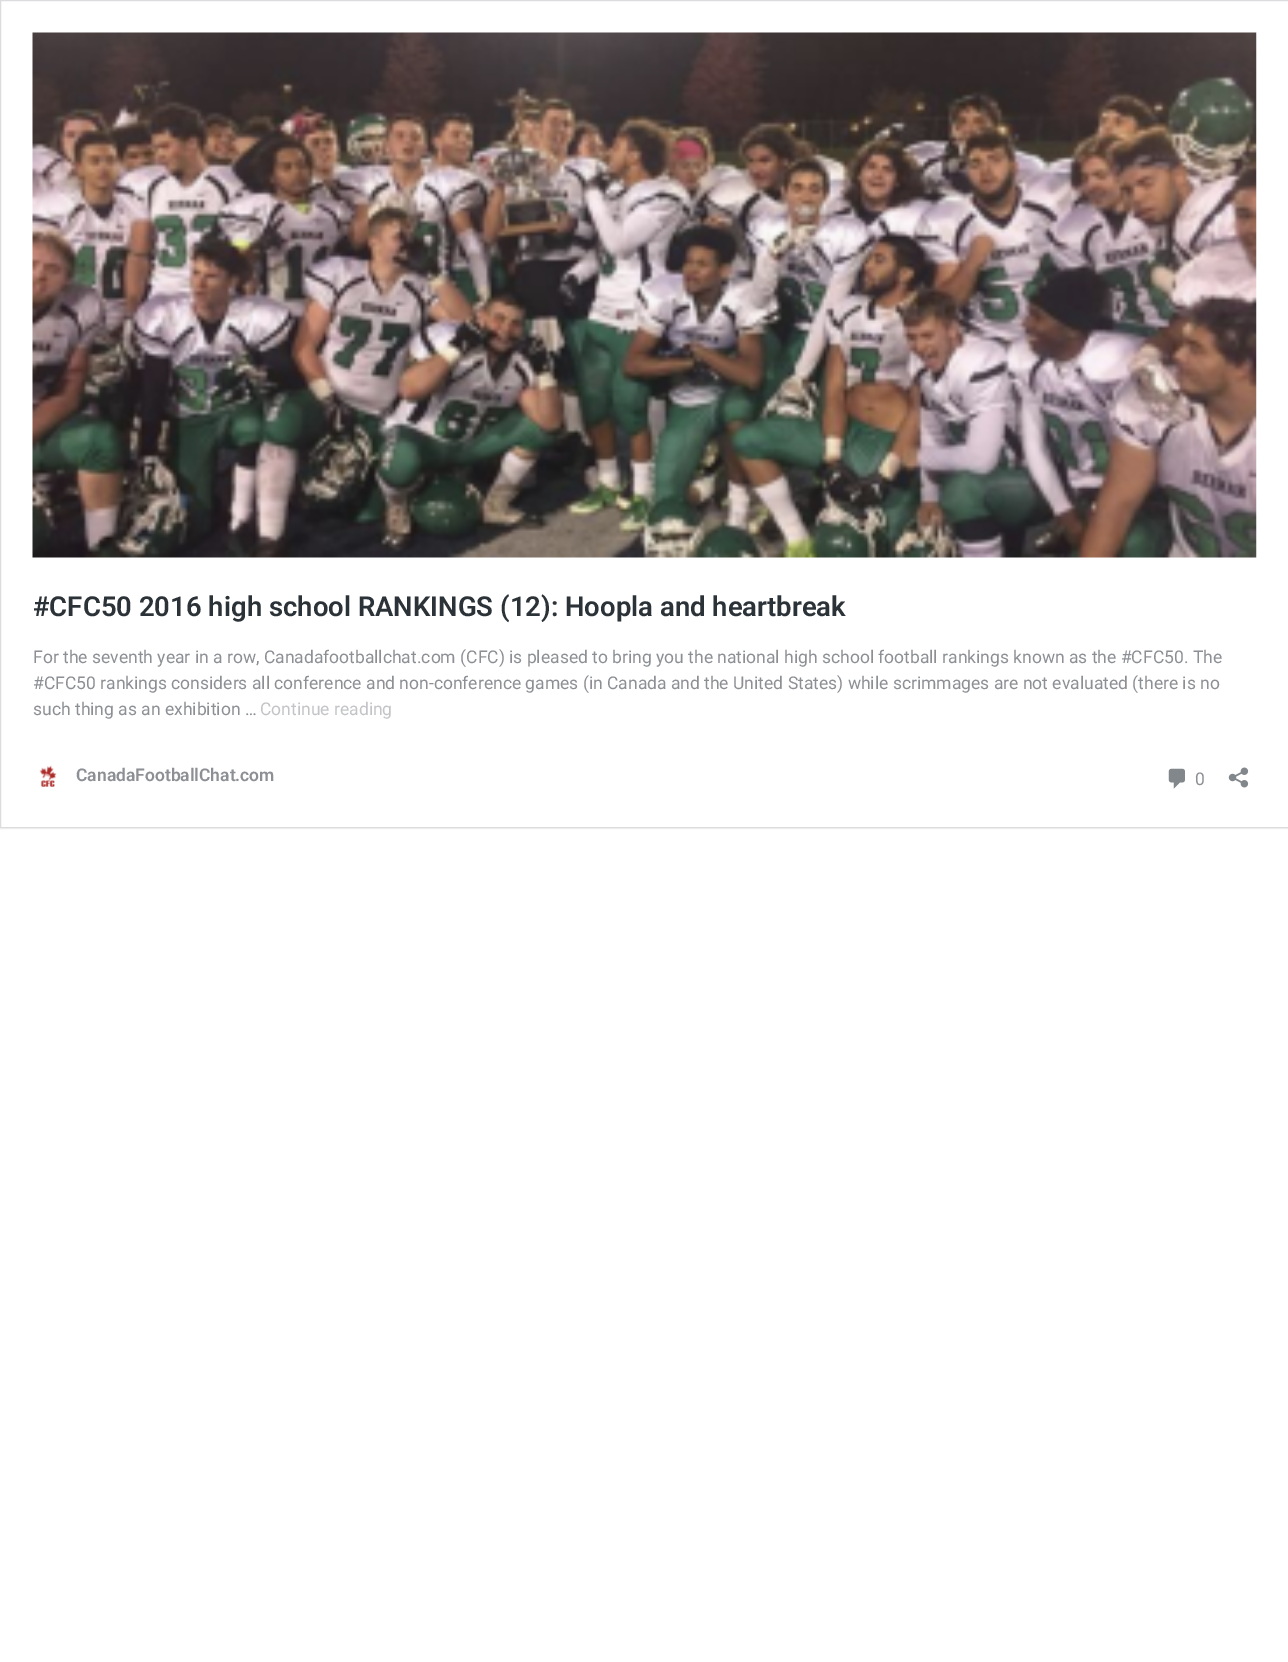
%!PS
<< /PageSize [1288 1662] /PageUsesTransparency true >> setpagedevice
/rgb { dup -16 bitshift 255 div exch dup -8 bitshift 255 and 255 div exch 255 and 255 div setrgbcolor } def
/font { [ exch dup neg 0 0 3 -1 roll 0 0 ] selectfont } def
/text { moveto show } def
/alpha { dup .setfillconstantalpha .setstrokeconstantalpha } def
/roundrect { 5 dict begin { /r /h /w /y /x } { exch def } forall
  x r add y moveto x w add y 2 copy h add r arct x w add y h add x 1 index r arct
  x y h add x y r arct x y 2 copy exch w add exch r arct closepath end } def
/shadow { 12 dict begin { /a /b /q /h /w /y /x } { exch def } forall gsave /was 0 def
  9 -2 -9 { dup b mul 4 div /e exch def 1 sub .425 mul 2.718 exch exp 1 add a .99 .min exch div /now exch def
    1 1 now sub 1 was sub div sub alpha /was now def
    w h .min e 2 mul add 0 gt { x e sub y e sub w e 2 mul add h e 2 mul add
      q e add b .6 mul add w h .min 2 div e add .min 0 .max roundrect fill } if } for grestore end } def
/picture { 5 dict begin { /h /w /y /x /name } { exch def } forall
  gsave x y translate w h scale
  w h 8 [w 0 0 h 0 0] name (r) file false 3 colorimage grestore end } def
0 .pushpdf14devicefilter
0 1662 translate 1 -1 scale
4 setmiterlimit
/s1 { /Roboto-SemiBold 27.5 font 16#2C3338 rgb } def
/s2 { /Roboto-Regular 17.5 font 16#8C8F94 rgb } def
/s3 { /Roboto-Regular 17.5 font 16#C3C4C7 rgb } def
/s4 { /Roboto-SemiBold 17.5 font 16#8C8F94 rgb } def
16#FFFFFF rgb
0 0 1288 1662 rectfill
16#000000 rgb
0 1 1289 828 0 0.5 0.05 shadow
16#FFFFFF rgb
0.5 0.5 moveto 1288.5 0.5 lineto 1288.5 827.5 lineto 0.5 827.5 lineto closepath gsave fill grestore
16#DCDCDE rgb
stroke
(pic1.raw) 32 32 1225 526 picture
s1
(#CFC50 2016 high school RANKINGS \(12\): Hoopla and heartbreak) 33 616 text
s2
(For the seventh year in a row, Canadafootballchat.com \(CFC\) is pleased to bring you the national high school football rankings known as the #CFC50. The) 33 663 text
(#CFC50 rankings considers all conference and non-conference games \(in Canada and the United States\) while scrimmages are not evaluated \(there is no) 33 689 text
(such thing as an exhibition …) 33 715 text
s3
(Continue reading) 260 715 text
(pic2.raw) 39 765 18 22 picture
s4
(CanadaFootballChat.com) 76 781 text
(pic3.raw) 1168 768 17 21 picture
s2
(0) 1195 785 text
(pic4.raw) 1228 767 21 21 picture
.poppdf14devicefilter showpage
